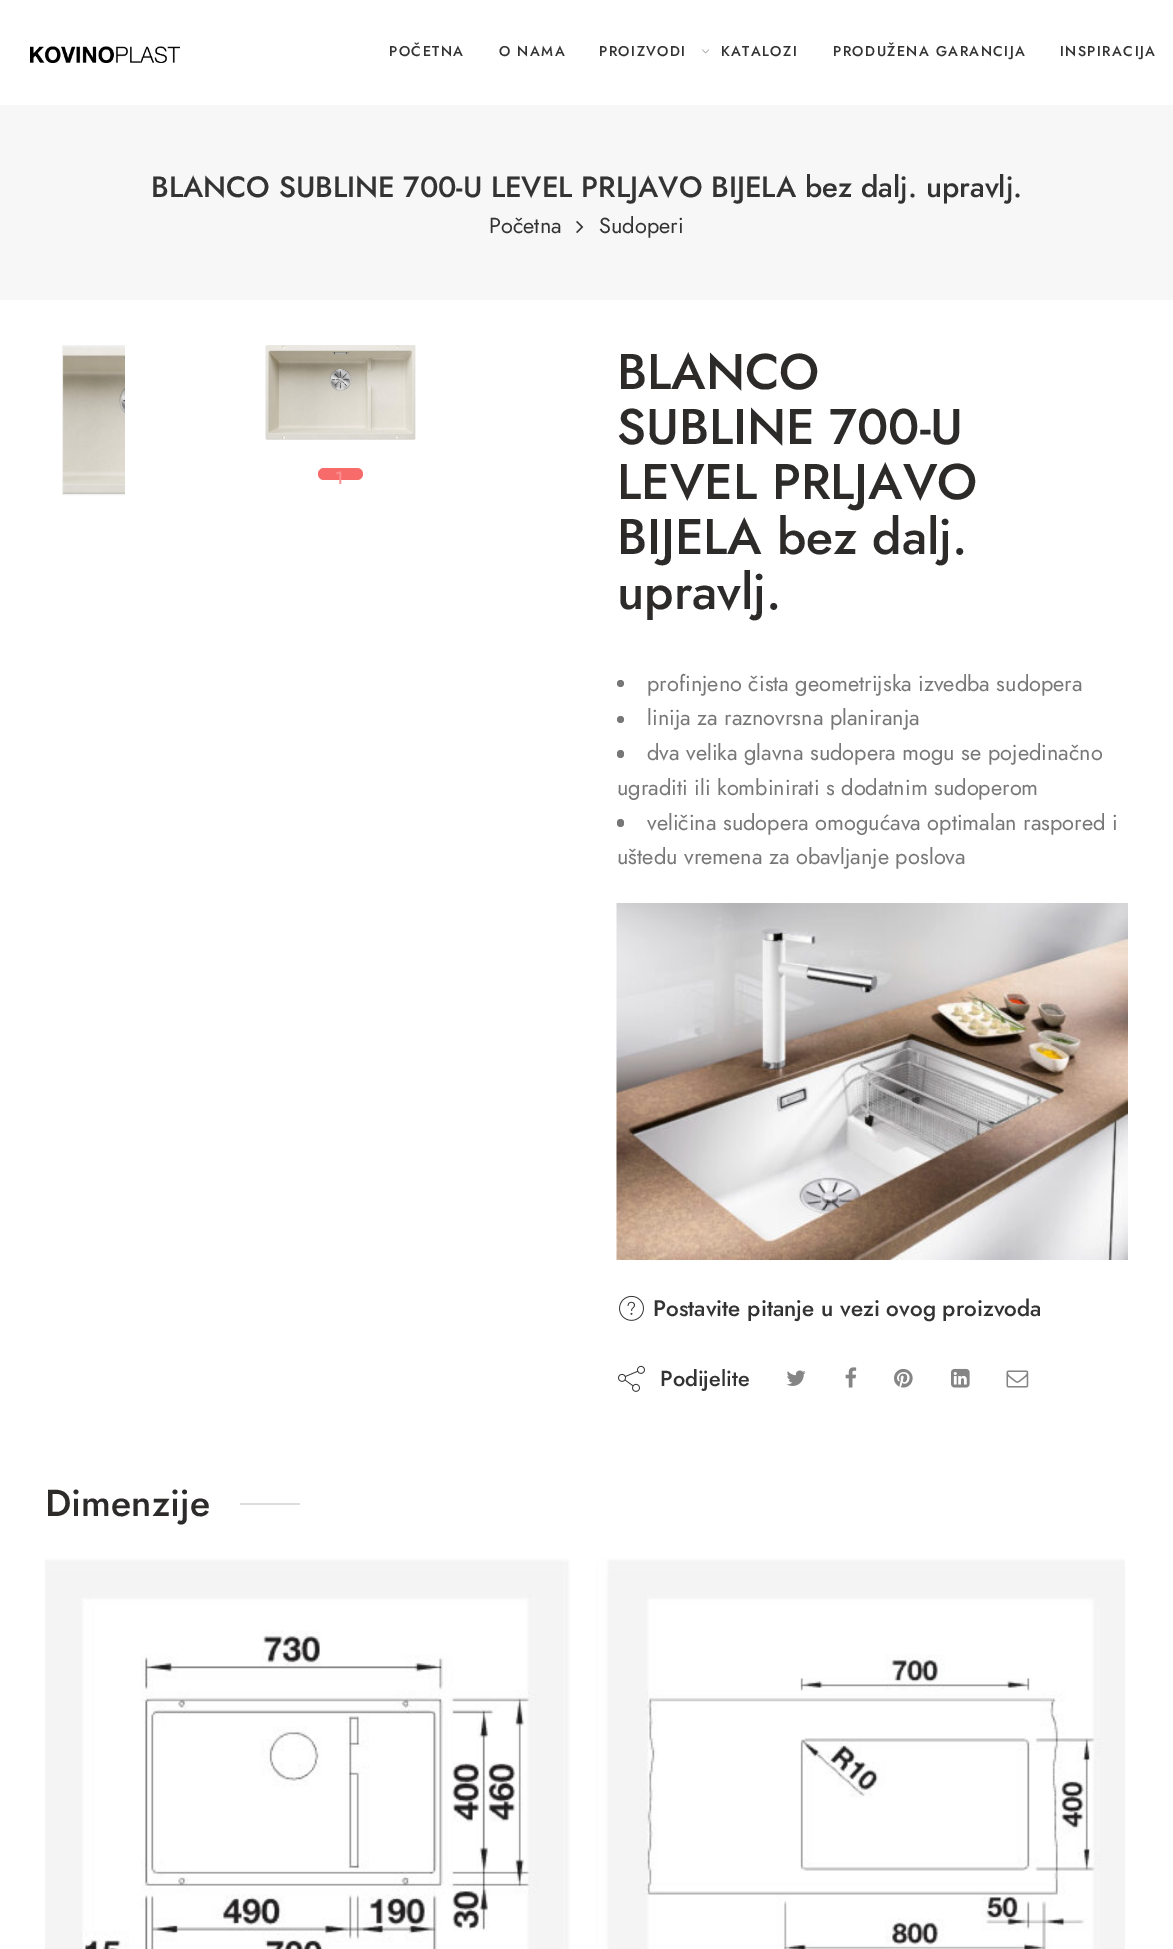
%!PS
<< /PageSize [1173 1949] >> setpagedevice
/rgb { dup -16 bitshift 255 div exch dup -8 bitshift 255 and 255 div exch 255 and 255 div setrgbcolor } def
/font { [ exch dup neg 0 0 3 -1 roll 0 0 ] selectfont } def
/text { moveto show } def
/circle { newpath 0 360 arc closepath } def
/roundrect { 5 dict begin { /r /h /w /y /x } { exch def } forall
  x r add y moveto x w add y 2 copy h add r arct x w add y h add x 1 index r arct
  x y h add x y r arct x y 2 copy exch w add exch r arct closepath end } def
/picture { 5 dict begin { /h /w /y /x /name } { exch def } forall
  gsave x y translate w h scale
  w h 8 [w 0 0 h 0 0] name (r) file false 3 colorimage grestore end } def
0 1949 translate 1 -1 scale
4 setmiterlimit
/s1 { /Jost-Medium 29.35 font 16#333333 rgb } def
/s2 { /Jost-Regular 21.75 font 16#333333 rgb } def
/s3 { /Jost-Medium 50 font 16#2D2A2A rgb } def
/s4 { /Jost-Regular 21.75 font 16#777777 rgb } def
/s5 { /Jost-Medium 22.5 font 16#333333 rgb } def
/s6 { /Jost-Medium 21.75 font 16#333333 rgb } def
/s7 { /Jost-Medium 37.5 font 16#2D2A2A rgb } def
16#FFFFFF rgb
0 0 1173 1949 rectfill
(pic1.raw) 30 46 150 17 picture
/Jost-Medium 14.2 font
16#333333 rgb
389 56 moveto 1.4 0 (POČETNA) ashow
499 56 moveto 1.4 0 (O NAMA) ashow
599 56 moveto 1.4 0 (PROIZVODI) ashow
(pic2.raw) 702 49 7 5 picture
721 56 moveto 1.4 0 (KATALOZI) ashow
833 56 moveto 1.4 0 (PRODUŽENA GARANCIJA) ashow
1060 56 moveto 1.4 0 (INSPIRACIJA) ashow
16#F7F7F7 rgb
0 105 1173 195 rectfill
s1
(BLANCO SUBLINE 700-U LEVEL PRLJAVO BIJELA bez dalj. upravlj.) 151 197 text
s2
(Početna) 489 233 text
(pic3.raw) 576 221 8 12 picture
(Sudoperi) 599 233 text
gsave
60 344 65 990 rectclip
16#F1F1F1 rgb
2 setlinewidth
63 346 148 148 rectstroke
grestore
(pic4.raw) 62 346 63 148 picture
(pic5.raw) 265 345 151 95 picture
16#F76B6A rgb
318 468 45 12 6 roundrect fill
/Jost-Medium 18 font
16#F9908F rgb
335 484 moveto 3 0 (1) ashow
s3
(BLANCO) 617 389 text
(SUBLINE 700-U) 617 444 text
(LEVEL PRLJAVO) 617 499 text
(BIJELA bez dalj.) 617 554 text
(upravlj.) 617 609 text
16#777777 rgb
620.5 683.5 3.5 circle fill
s4
(profinjeno čista geometrijska izvedba sudopera) 647 691 text
620.5 719.5 3.5 circle fill
(linija za raznovrsna planiranja) 647 725 text
617 750 7 8 3.5 roundrect fill
(dva velika glavna sudopera mogu se pojedinačno) 647 760 text
(ugraditi ili kombinirati s dodatnim sudoperom) 617 795 text
617 819 7 8 3.5 roundrect fill
(veličina sudopera omogućava optimalan raspored i) 647 830 text
(uštedu vremena za obavljanje poslova) 617 864 text
(pic6.raw) 616 903 512 357 picture
(pic7.raw) 619 1295 25 26 picture
s5
(Postavite pitanje u vezi ovog proizvoda) 653 1316 text
(pic8.raw) 618 1365 27 27 picture
s6
(Podijelite) 660 1386 text
(pic9.raw) 786 1370 20 16 picture
(pic10.raw) 845 1367 12 21 picture
(pic11.raw) 894 1368 19 20 picture
(pic12.raw) 951 1368 19 20 picture
(pic13.raw) 1006 1370 23 18 picture
s7
(Dimenzije) 45 1516 text
16#DDDDDD rgb
240 1503 60 2 rectfill
(pic14.raw) 45 1558 1080 391 picture
showpage
